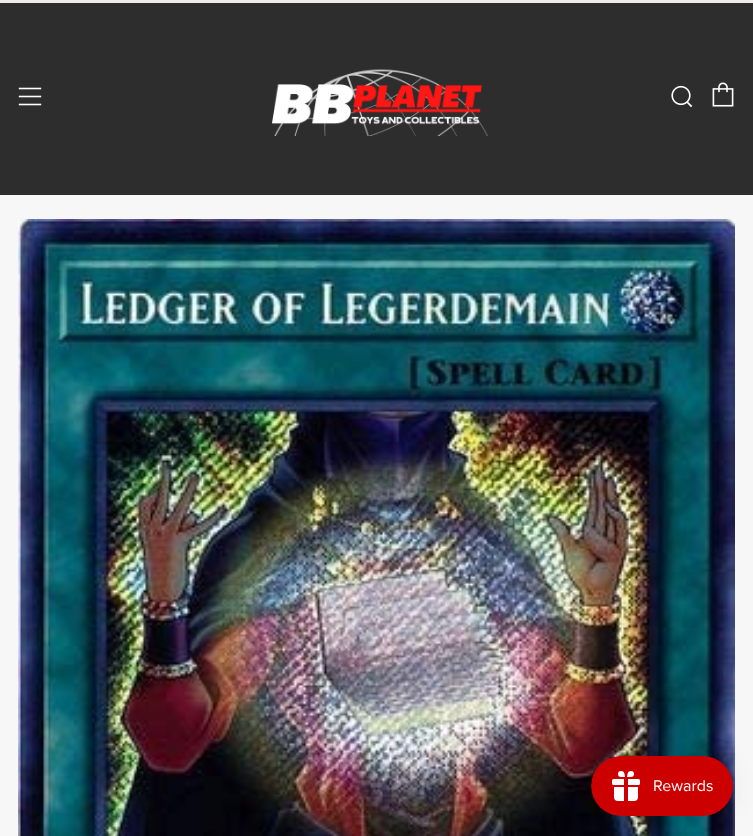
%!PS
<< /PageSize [753 836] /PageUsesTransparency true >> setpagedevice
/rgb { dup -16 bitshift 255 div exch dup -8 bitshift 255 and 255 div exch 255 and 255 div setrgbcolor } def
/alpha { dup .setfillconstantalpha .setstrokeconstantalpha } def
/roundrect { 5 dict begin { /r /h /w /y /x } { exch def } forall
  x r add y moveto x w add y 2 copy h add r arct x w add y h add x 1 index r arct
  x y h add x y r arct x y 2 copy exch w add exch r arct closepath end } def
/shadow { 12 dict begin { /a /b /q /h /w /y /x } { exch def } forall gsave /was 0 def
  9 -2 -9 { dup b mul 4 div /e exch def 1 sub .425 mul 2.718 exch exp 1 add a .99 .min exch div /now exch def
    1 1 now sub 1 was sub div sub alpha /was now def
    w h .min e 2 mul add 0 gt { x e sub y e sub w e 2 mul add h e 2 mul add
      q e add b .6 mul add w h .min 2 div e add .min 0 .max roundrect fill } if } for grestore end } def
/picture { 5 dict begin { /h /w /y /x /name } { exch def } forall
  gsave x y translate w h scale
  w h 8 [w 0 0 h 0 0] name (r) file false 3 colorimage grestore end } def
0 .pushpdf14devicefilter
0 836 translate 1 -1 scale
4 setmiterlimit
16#F7F7F7 rgb
0 0 753 836 rectfill
16#EEEBEB rgb
0 0 753 3 rectfill
16#2E2D2D rgb
0 3 753 192 rectfill
(pic1.raw) 18 87 24 19 picture
(pic2.raw) 272 69 216 67 picture
(pic3.raw) 671 85 22 23 picture
(pic4.raw) 712 82 22 25 picture
(pic5.raw) 18 219 717 617 picture
16#000000 rgb
591 756 142 60 30 12.5 0.05 shadow
(pic6.raw) 591 756 142 60 picture
.poppdf14devicefilter showpage
